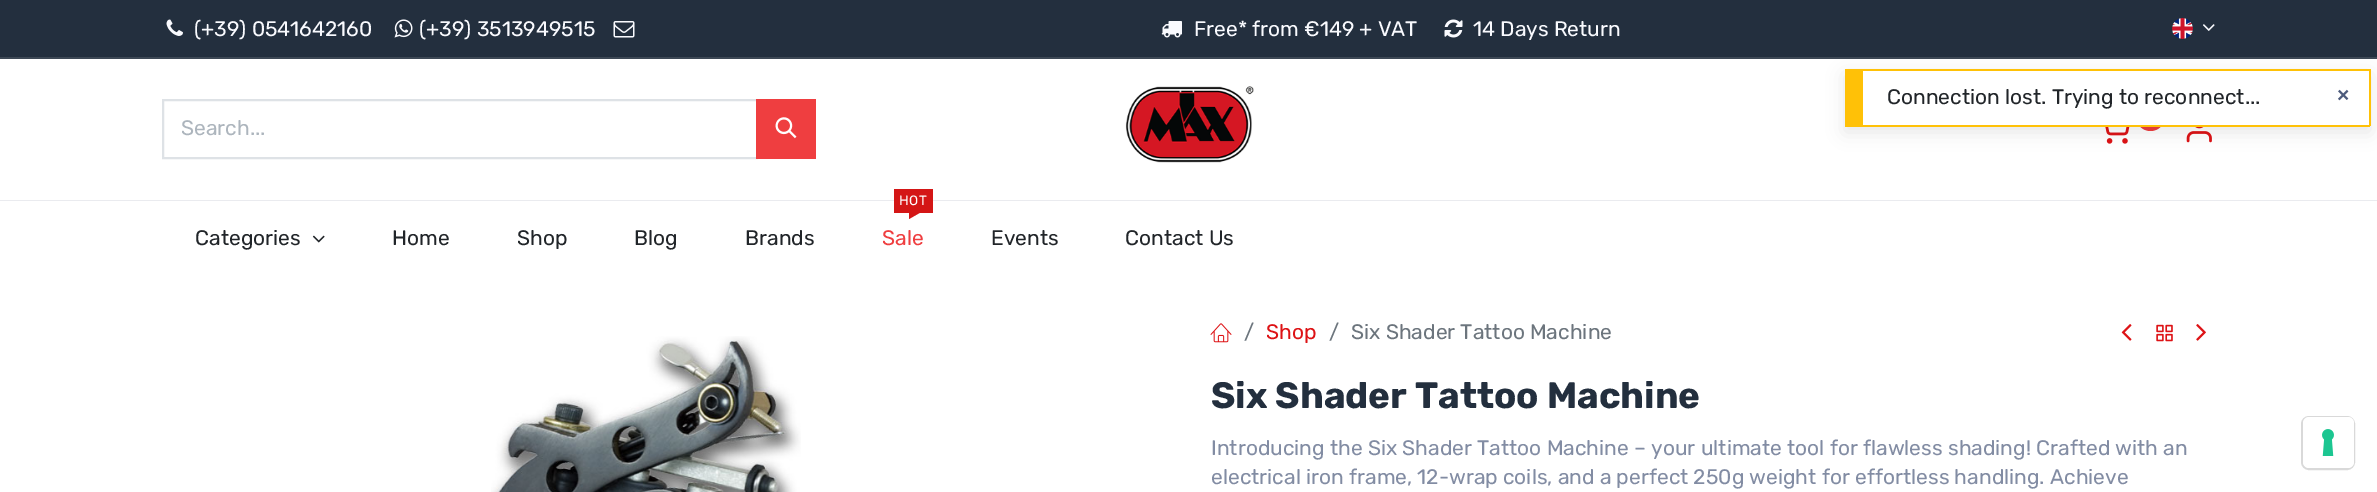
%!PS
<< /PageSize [2377 492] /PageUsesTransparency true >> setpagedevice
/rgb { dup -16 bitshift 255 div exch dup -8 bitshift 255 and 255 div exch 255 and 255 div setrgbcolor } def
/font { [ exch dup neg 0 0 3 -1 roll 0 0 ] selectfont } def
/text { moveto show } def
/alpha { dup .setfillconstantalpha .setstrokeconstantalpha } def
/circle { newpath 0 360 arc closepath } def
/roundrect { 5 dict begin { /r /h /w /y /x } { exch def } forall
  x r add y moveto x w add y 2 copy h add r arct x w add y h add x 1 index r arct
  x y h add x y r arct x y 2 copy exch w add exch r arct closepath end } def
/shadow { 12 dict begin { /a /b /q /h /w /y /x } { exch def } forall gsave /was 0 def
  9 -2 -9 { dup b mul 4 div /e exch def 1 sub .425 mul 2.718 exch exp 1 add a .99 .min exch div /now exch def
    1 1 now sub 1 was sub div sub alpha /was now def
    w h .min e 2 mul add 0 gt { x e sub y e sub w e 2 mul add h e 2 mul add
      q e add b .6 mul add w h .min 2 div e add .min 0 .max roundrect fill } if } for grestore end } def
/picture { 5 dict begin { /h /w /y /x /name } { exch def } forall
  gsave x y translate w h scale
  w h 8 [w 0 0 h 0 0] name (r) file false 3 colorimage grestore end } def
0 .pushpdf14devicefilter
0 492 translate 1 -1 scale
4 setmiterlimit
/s1 { /Rubik-Regular 21 font 16#F9FAFE rgb } def
/s2 { /Rubik-Regular 21 font 16#ADB5BD rgb } def
/s3 { /Rubik-Regular 21 font 16#212529 rgb } def
/s4 { /Rubik-Regular 21 font 16#EF3E40 rgb } def
/s5 { /Rubik-Regular 21 font 16#6C757D rgb } def
/s6 { /Rubik-Regular 21 font 16#DD1215 rgb } def
/s7 { /Rubik-Bold 36.75 font 16#232F3E rgb } def
/s8 { /Rubik-Regular 21 font 16#828CA3 rgb } def
/s9 { /LiberationSans-Bold 21 font 16#4D5B7C rgb } def
16#FFFFFF rgb
0 0 2377 492 rectfill
16#232F3E rgb
0 0 2377 57 rectfill
16#3D4855 rgb
0 57 2377 2 rectfill
(pic1.raw) 166 19 17 17 picture
s1
(\(+39\) 0541642160) 194 36 text
(pic2.raw) 394 19 19 19 picture
(\(+39\) 3513949515) 419 36 text
(pic3.raw) 613 21 22 17 picture
(pic4.raw) 1161 21 21 17 picture
(Free* from €149 + VAT) 1194 36 text
(pic5.raw) 1444 19 19 19 picture
(14 Days Return) 1473 36 text
(pic6.raw) 2172 18 21 21 picture
(pic7.raw) 2203 24 12 7 picture
16#EAEBEF rgb
0 200 2377 1 rectfill
16#DEE2E6 rgb
2 setlinewidth
163 100 594 58 rectstroke
s2
(Search...) 181 135 text
16#EF3E40 rgb
756 99 60 60 rectfill
(pic8.raw) 775 117 22 22 picture
(pic9.raw) 1125 86 129 77 picture
2150.5 116.5 14.5 circle fill
(pic10.raw) 2105 127 25 17 picture
(pic11.raw) 2186 127 26 16 picture
s3
(Categories) 195 245 text
(pic12.raw) 312 235 13 8 picture
(Home) 392 245 text
(Shop) 517 245 text
(Blog) 634 245 text
(Brands) 745 245 text
16#D41616 rgb
894 189 39 24 rectfill
/Rubik-Regular 13.5 font
16#FFFFFF rgb
899 205 moveto 0.5 0 (HOT) ashow
16#D41616 rgb
909 213 moveto 919.5 213 lineto 909 219 lineto closepath fill
s4
(Sale) 882 245 text
s3
(Events) 991 245 text
(Contact Us) 1125 245 text
(pic13.raw) 491 336 310 156 picture
(pic14.raw) 1210 323 22 20 picture
s5
(/) 1244 339 text
s6
(Shop) 1266 339 text
s5
(/) 1329 339 text
(Six Shader Tattoo Machine) 1351 339 text
(pic15.raw) 2121 324 11 17 picture
(pic16.raw) 2156 324 17 18 picture
(pic17.raw) 2196 324 10 17 picture
s7
(Six Shader Tattoo Machine) 1211 408 text
s8
(Introducing the Six Shader Tattoo Machine – your ultimate tool for flawless shading! Crafted with an) 1211 455 text
(electrical iron frame, 12-wrap coils, and a perfect 250g weight for effortless handling. Achieve) 1211 484 text
16#000000 rgb
1845 75 525 57 0 9 0.1 shadow
16#FFFFFF rgb
1863 71 506 54 rectfill
16#FFC107 rgb
1863 69 507 2 rectfill
2369 69 2 57 rectfill
1845 125 525 2 rectfill
1845 69 18 56 rectfill
s3
(Connection lost. Trying to reconnect...) 1887 104 text
s9
(×) 2337 102 text
16#D9D9D9 rgb
2302 417 52 52 7 roundrect stroke
16#FFFFFF rgb
2303 417 51 51 6 roundrect fill
(pic18.raw) 2322 429 12 27 picture
.poppdf14devicefilter showpage
